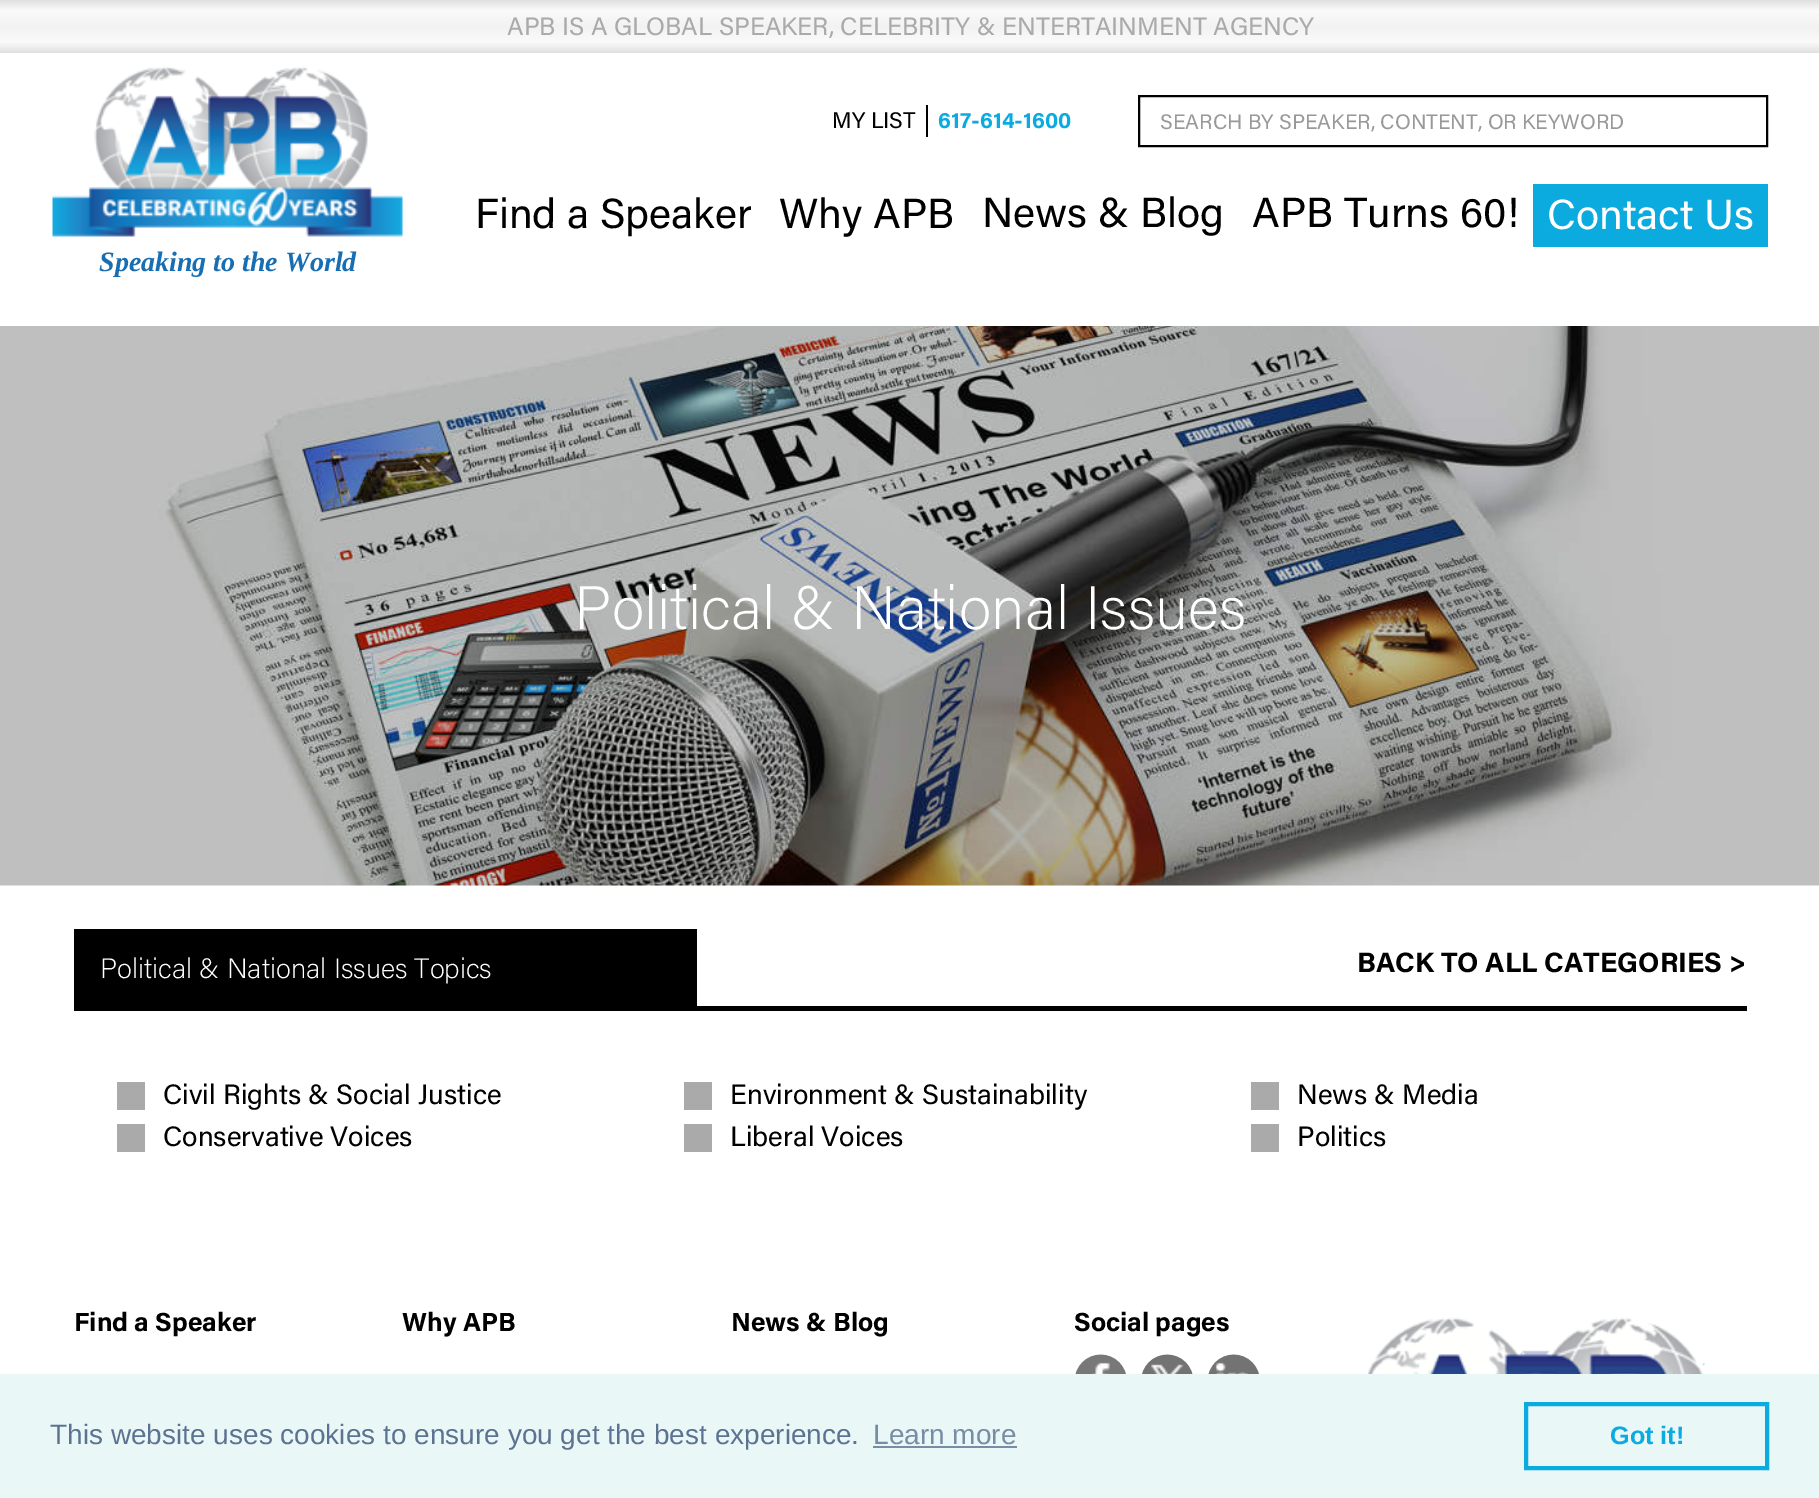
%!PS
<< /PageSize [1819 1498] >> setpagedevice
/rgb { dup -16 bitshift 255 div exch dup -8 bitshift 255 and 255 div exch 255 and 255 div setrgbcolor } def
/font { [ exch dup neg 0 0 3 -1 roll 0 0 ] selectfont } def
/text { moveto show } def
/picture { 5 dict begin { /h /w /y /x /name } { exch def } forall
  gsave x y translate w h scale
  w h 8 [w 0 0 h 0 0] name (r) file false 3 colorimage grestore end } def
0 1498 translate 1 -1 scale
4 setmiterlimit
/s1 { /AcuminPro-Regular 25.2 font 16#AAAAAA rgb } def
/s2 { /AcuminPro-Regular 22.5 font 16#000000 rgb } def
/s3 { /AcuminPro-Bold 22.5 font 16#0BABE0 rgb } def
/s4 { /AcuminPro-Regular 21 font 16#999999 rgb } def
/s5 { /AcuminPro-Regular 42 font 16#000000 rgb } def
/s6 { /AcuminPro-Regular 42 font 16#FFFFFF rgb } def
/s7 { /LiberationSerif-BoldItalic 28 font 16#186EB2 rgb } def
/s8 { /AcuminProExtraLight-ExtraLight 61.25 font 16#FFFFFF rgb } def
/s9 { /AcuminProExtraLight-ExtraLight 28 font 16#FFFFFF rgb } def
/s10 { /AcuminPro-Bold 28 font 16#000000 rgb } def
/s11 { /AcuminPro-Regular 28 font 16#000000 rgb } def
/s12 { /AcuminPro-Bold 26.25 font 16#000000 rgb } def
/s13 { /LiberationSans-Regular 28 font 16#5C7291 rgb } def
/s14 { /LiberationSans-Regular 28 font 16#788DA5 rgb } def
/s15 { /LiberationSans-Bold 25.2 font 16#0BABE0 rgb } def
16#FFFFFF rgb
0 0 1819 1498 rectfill
gsave 0 0 moveto 1819 0 lineto 1819 53 lineto 0 53 lineto closepath clip newpath
<< /ShadingType 2 /ColorSpace /DeviceRGB /Coords [910 0 910 53] /Extend [true true] /Function << /FunctionType 3 /Domain [0 1] /Functions [<< /FunctionType 2 /Domain [0 1] /C0 [0.878 0.878 0.878] /C1 [0.98 0.98 0.98] /N 1 >> << /FunctionType 2 /Domain [0 1] /C0 [0.98 0.98 0.98] /C1 [0.949 0.949 0.949] /N 1 >> << /FunctionType 2 /Domain [0 1] /C0 [0.949 0.949 0.949] /C1 [0.98 0.98 0.98] /N 1 >> << /FunctionType 2 /Domain [0 1] /C0 [0.98 0.98 0.98] /C1 [0.878 0.878 0.878] /N 1 >>] /Bounds [0.2 0.5 0.8] /Encode [0 1 0 1 0 1 0 1] >> >> shfill grestore
s1
(APB IS A GLOBAL SPEAKER, CELEBRITY & ENTERTAINMENT AGENCY) 507 35 text
16#000000 rgb
926 105 2 32 rectfill
s2
(MY LIST) 832 128 text
s3
(617-614-1600) 938 128 text
16#000000 rgb
2 setlinewidth
1139 96 628 50 rectstroke
s4
(SEARCH BY SPEAKER, CONTENT, OR KEYWORD) 1160 129 text
s5
(Find a Speaker) 475 228 text
(Why APB) 779 228 text
(News & Blog) 982 227 text
(APB Turns 60!) 1252 227 text
16#0BABE0 rgb
1533 184 235 63 rectfill
s6
(Contact Us) 1547 229 text
(pic1.raw) 52 66 351 171 picture
s7
(Speaking to the World) 99 271 text
(pic2.raw) 0 326 1819 560 picture
s8
(Political & National Issues) 574 629 text
16#000000 rgb
74 1006 1673 5 rectfill
74 929 623 77 rectfill
s9
(Political & National Issues Topics) 100 978 text
s10
(BACK TO ALL CATEGORIES >) 1357 972 text
16#AAAAAA rgb
117 1082 28 28 rectfill
s11
(Civil Rights & Social Justice) 163 1104 text
16#AAAAAA rgb
684 1082 28 28 rectfill
s11
(Environment & Sustainability) 730 1104 text
16#AAAAAA rgb
1251 1082 28 28 rectfill
s11
(News & Media) 1297 1104 text
16#AAAAAA rgb
117 1124 28 28 rectfill
s11
(Conservative Voices) 163 1146 text
16#AAAAAA rgb
684 1124 28 28 rectfill
s11
(Liberal Voices) 730 1146 text
16#AAAAAA rgb
1251 1124 28 28 rectfill
s11
(Politics) 1297 1146 text
s12
(Find a Speaker) 74 1331 text
(Why APB) 402 1331 text
(News & Blog) 731 1331 text
(Social pages) 1074 1331 text
(pic3.raw) 1075 1354 51 20 picture
(pic4.raw) 1142 1354 51 20 picture
(pic5.raw) 1208 1354 51 20 picture
(pic6.raw) 1363 1317 344 57 picture
16#EAF7F7 rgb
0 1374 1819 124 rectfill
s13
(This website uses cookies to ensure you get the best experience.) 50 1444 text
s14
(Learn more) 873 1444 text
873 1446 144 2 rectfill
16#0BABE0 rgb
4 setlinewidth
1526 1404 241 64 rectstroke
s15
(Got it!) 1610 1444 text
showpage
